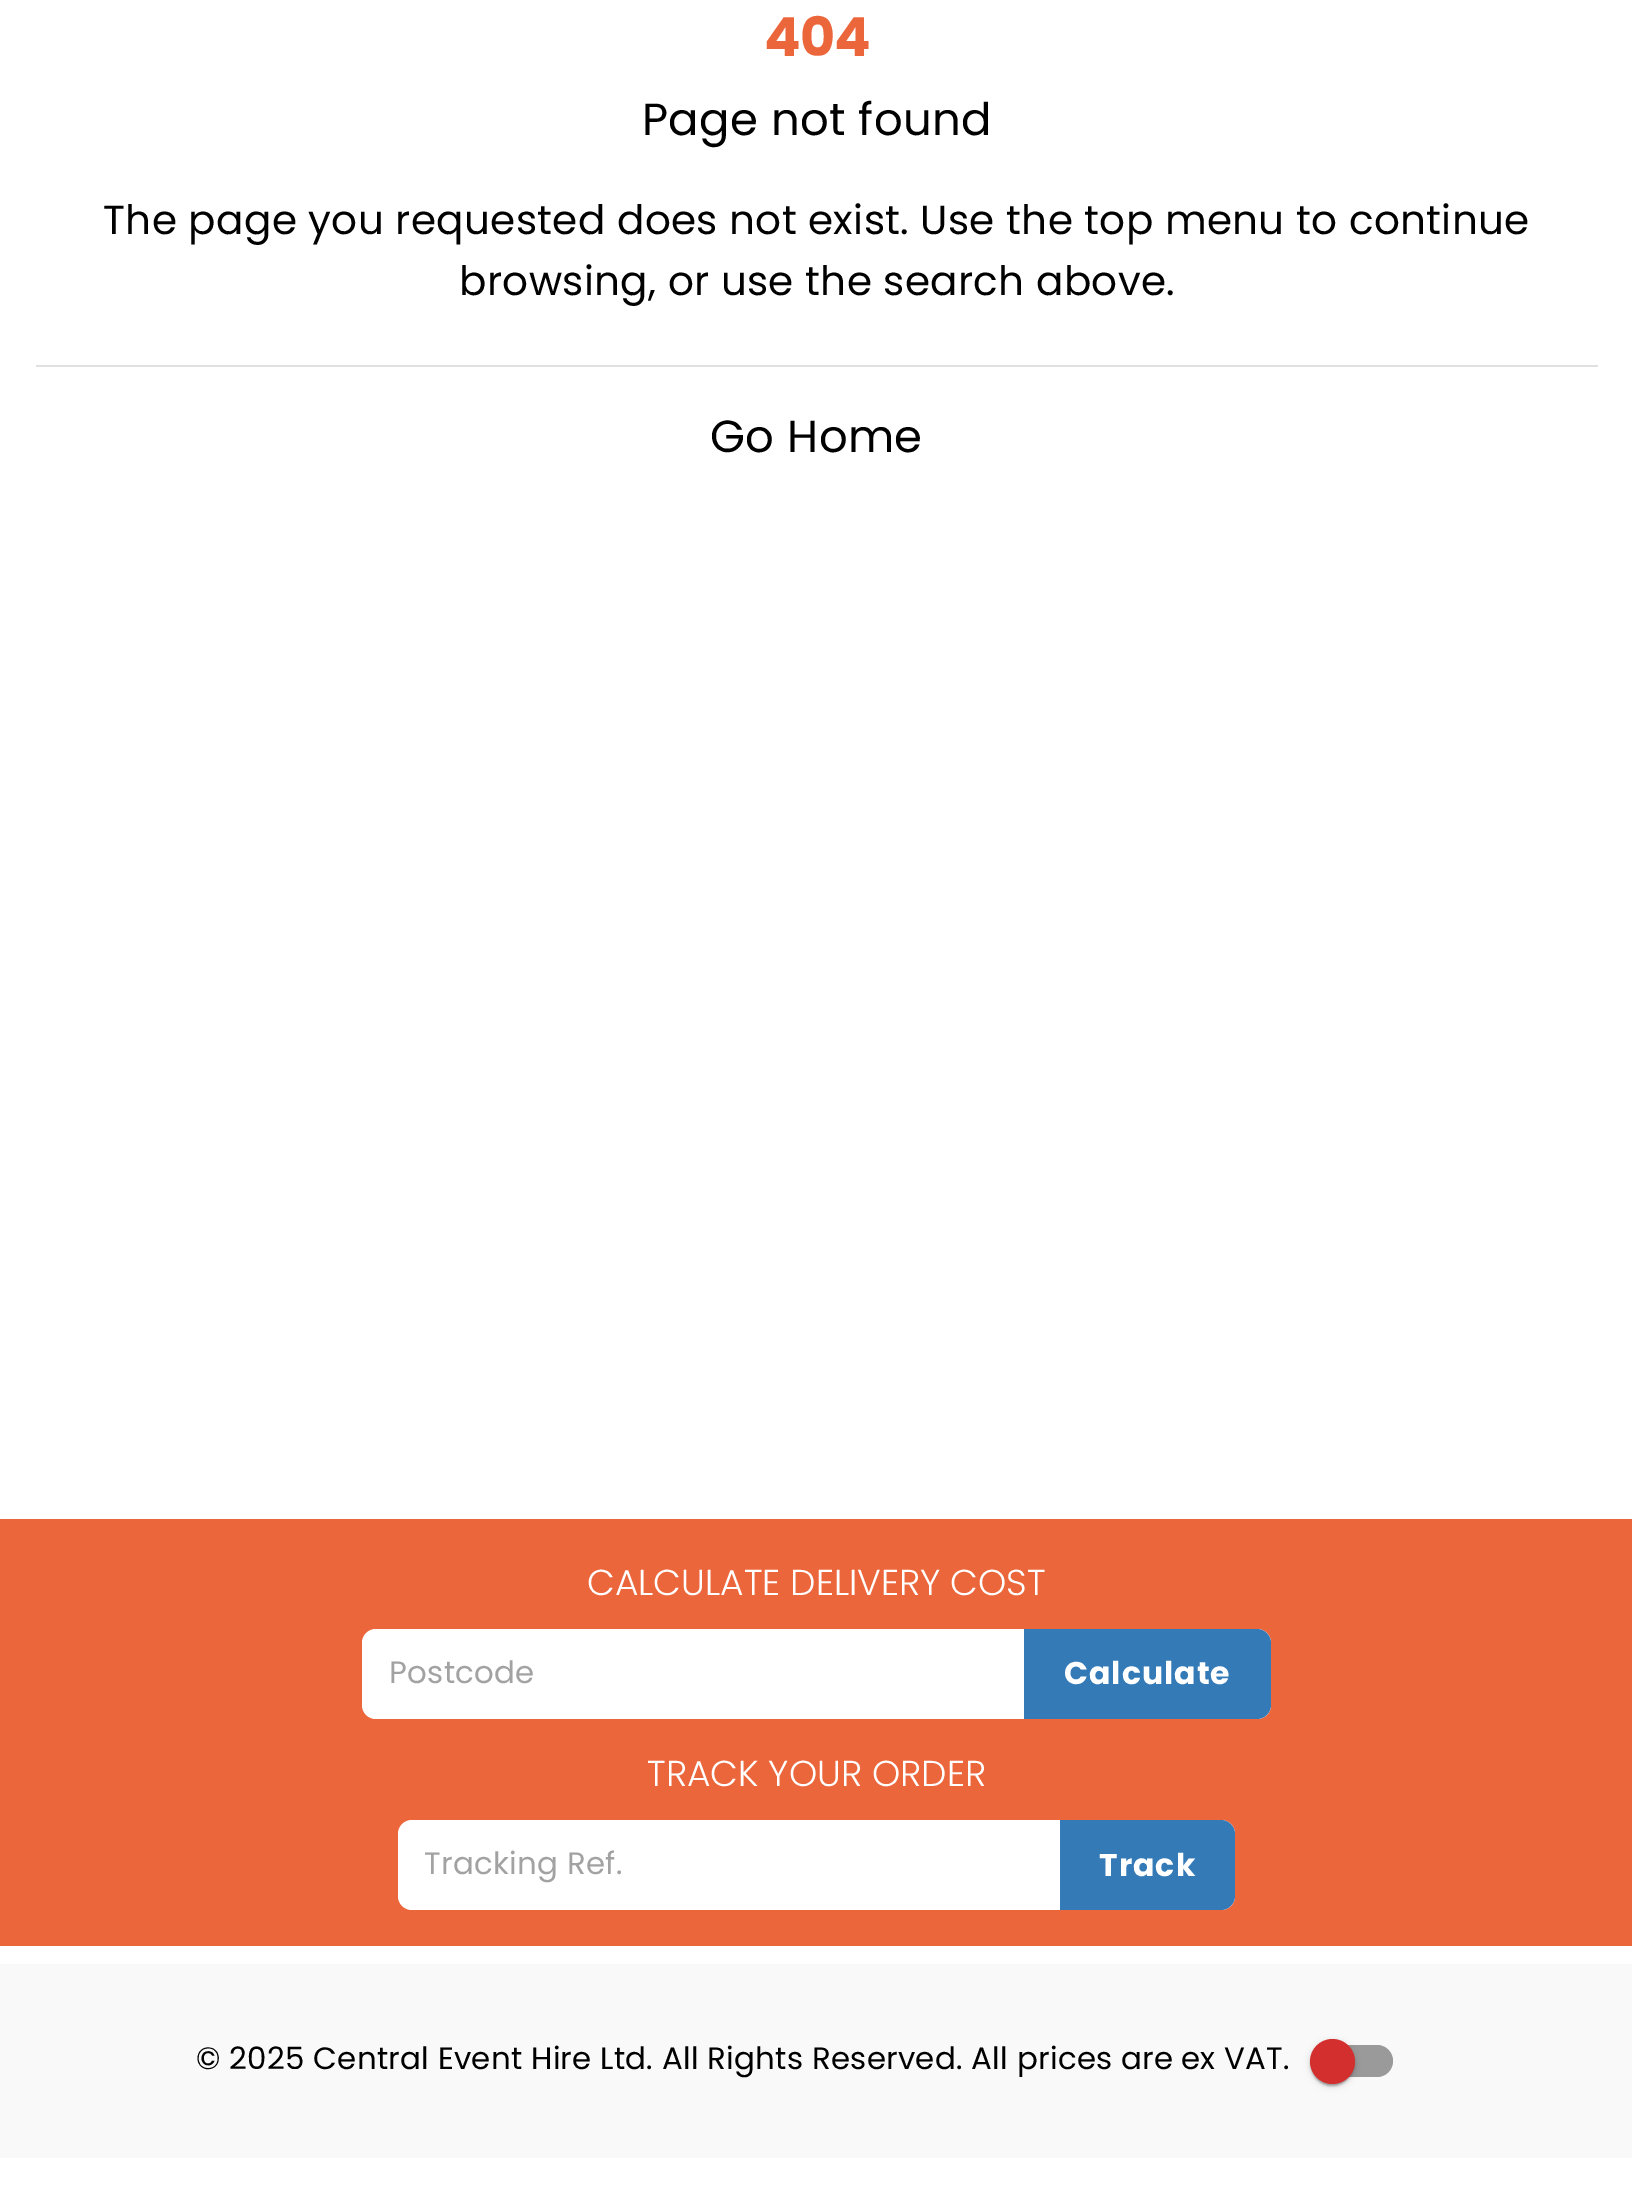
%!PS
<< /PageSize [1632 2197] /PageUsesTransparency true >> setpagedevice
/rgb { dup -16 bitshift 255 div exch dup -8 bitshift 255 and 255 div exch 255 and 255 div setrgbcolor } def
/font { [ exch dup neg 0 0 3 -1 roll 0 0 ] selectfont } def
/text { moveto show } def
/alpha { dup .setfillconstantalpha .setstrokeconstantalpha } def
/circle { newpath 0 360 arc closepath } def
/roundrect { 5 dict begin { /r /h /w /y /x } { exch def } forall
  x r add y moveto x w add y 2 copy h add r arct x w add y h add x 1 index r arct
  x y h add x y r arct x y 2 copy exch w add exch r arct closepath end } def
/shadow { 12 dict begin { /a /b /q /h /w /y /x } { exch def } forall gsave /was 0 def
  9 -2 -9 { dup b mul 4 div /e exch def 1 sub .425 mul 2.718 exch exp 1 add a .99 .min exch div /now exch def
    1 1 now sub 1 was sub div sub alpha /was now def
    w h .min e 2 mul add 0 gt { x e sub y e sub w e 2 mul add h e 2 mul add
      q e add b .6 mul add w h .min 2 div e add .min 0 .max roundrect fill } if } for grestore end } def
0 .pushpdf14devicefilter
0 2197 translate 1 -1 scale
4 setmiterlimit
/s1 { /Poppins-Light 36 font 16#FFFFFF rgb } def
16#FFFFFF rgb
0 0 1632 2197 rectfill
/Poppins-Bold 54 font
16#EC663C rgb
764 56 moveto -1 0 (404) ashow
/Poppins-Regular 45 font
16#000000 rgb
642 135 moveto 0.4 0 (Page not found) ashow
/Poppins-Regular 40.5 font
103 234 moveto 0.38 0 (The page you requested does not exist. Use the top menu to continue) ashow
459 295 moveto 0.38 0 (browsing, or use the search above.) ashow
16#E0E0E0 rgb
36 365 1562 2 rectfill
/Poppins-Regular 45 font
16#000000 rgb
710 452 moveto 0.4 0 (Go Home) ashow
16#EC663C rgb
0 1519 1632 427 rectfill
s1
(CALCULATE DELIVERY COST) 587 1595 text
362 1629 909 90 14 roundrect fill
/Poppins-Regular 30.85 font
16#A2A2A2 rgb
389 1683 moveto 0.3 0 (Postcode) ashow
16#337AB7 rgb
1024 1629 moveto 1257 1629 lineto 1264.5 1629 1271 1635.5 1271 1643 curveto 1271 1705 lineto 1271 1712.5 1264.5 1719 1257 1719 curveto 1024 1719 lineto closepath fill
/Poppins-Bold 31.5 font
16#FFFFFF rgb
1064 1684 moveto 1 0 (Calculate) ashow
s1
(TRACK YOUR ORDER) 647 1786 text
398 1820 837 90 14 roundrect fill
/Poppins-Regular 30.85 font
16#A2A2A2 rgb
424 1874 moveto 0.3 0 (Tracking Ref.) ashow
16#337AB7 rgb
1060 1820 moveto 1221 1820 lineto 1228.5 1820 1235 1826.5 1235 1834 curveto 1235 1896 lineto 1235 1903.5 1228.5 1910 1221 1910 curveto 1060 1910 lineto closepath fill
/Poppins-Bold 31.5 font
16#FFFFFF rgb
1099 1876 moveto 1 0 (Track) ashow
16#F9F9F9 rgb
0 1964 1632 194 rectfill
/Poppins-Regular 30.85 font
16#000000 rgb
196 2069 moveto 0.3 0 (© 2025 Central Event Hire Ltd. All Rights Reserved. All prices are) ashow
1181 2069 moveto 0.3 0 (ex VAT.) ashow
16#9A9A9A rgb
1316 2045 77 32 16 roundrect fill
16#000000 rgb
1310 2041 45 45 22.5 3.5 0.12 shadow
1310 2041 45 45 22.5 1 0.14 shadow
1312 2045 40 41 20 1 0.2 shadow
16#D32F2F rgb
1332.5 2061.5 22.5 circle fill
.poppdf14devicefilter showpage
